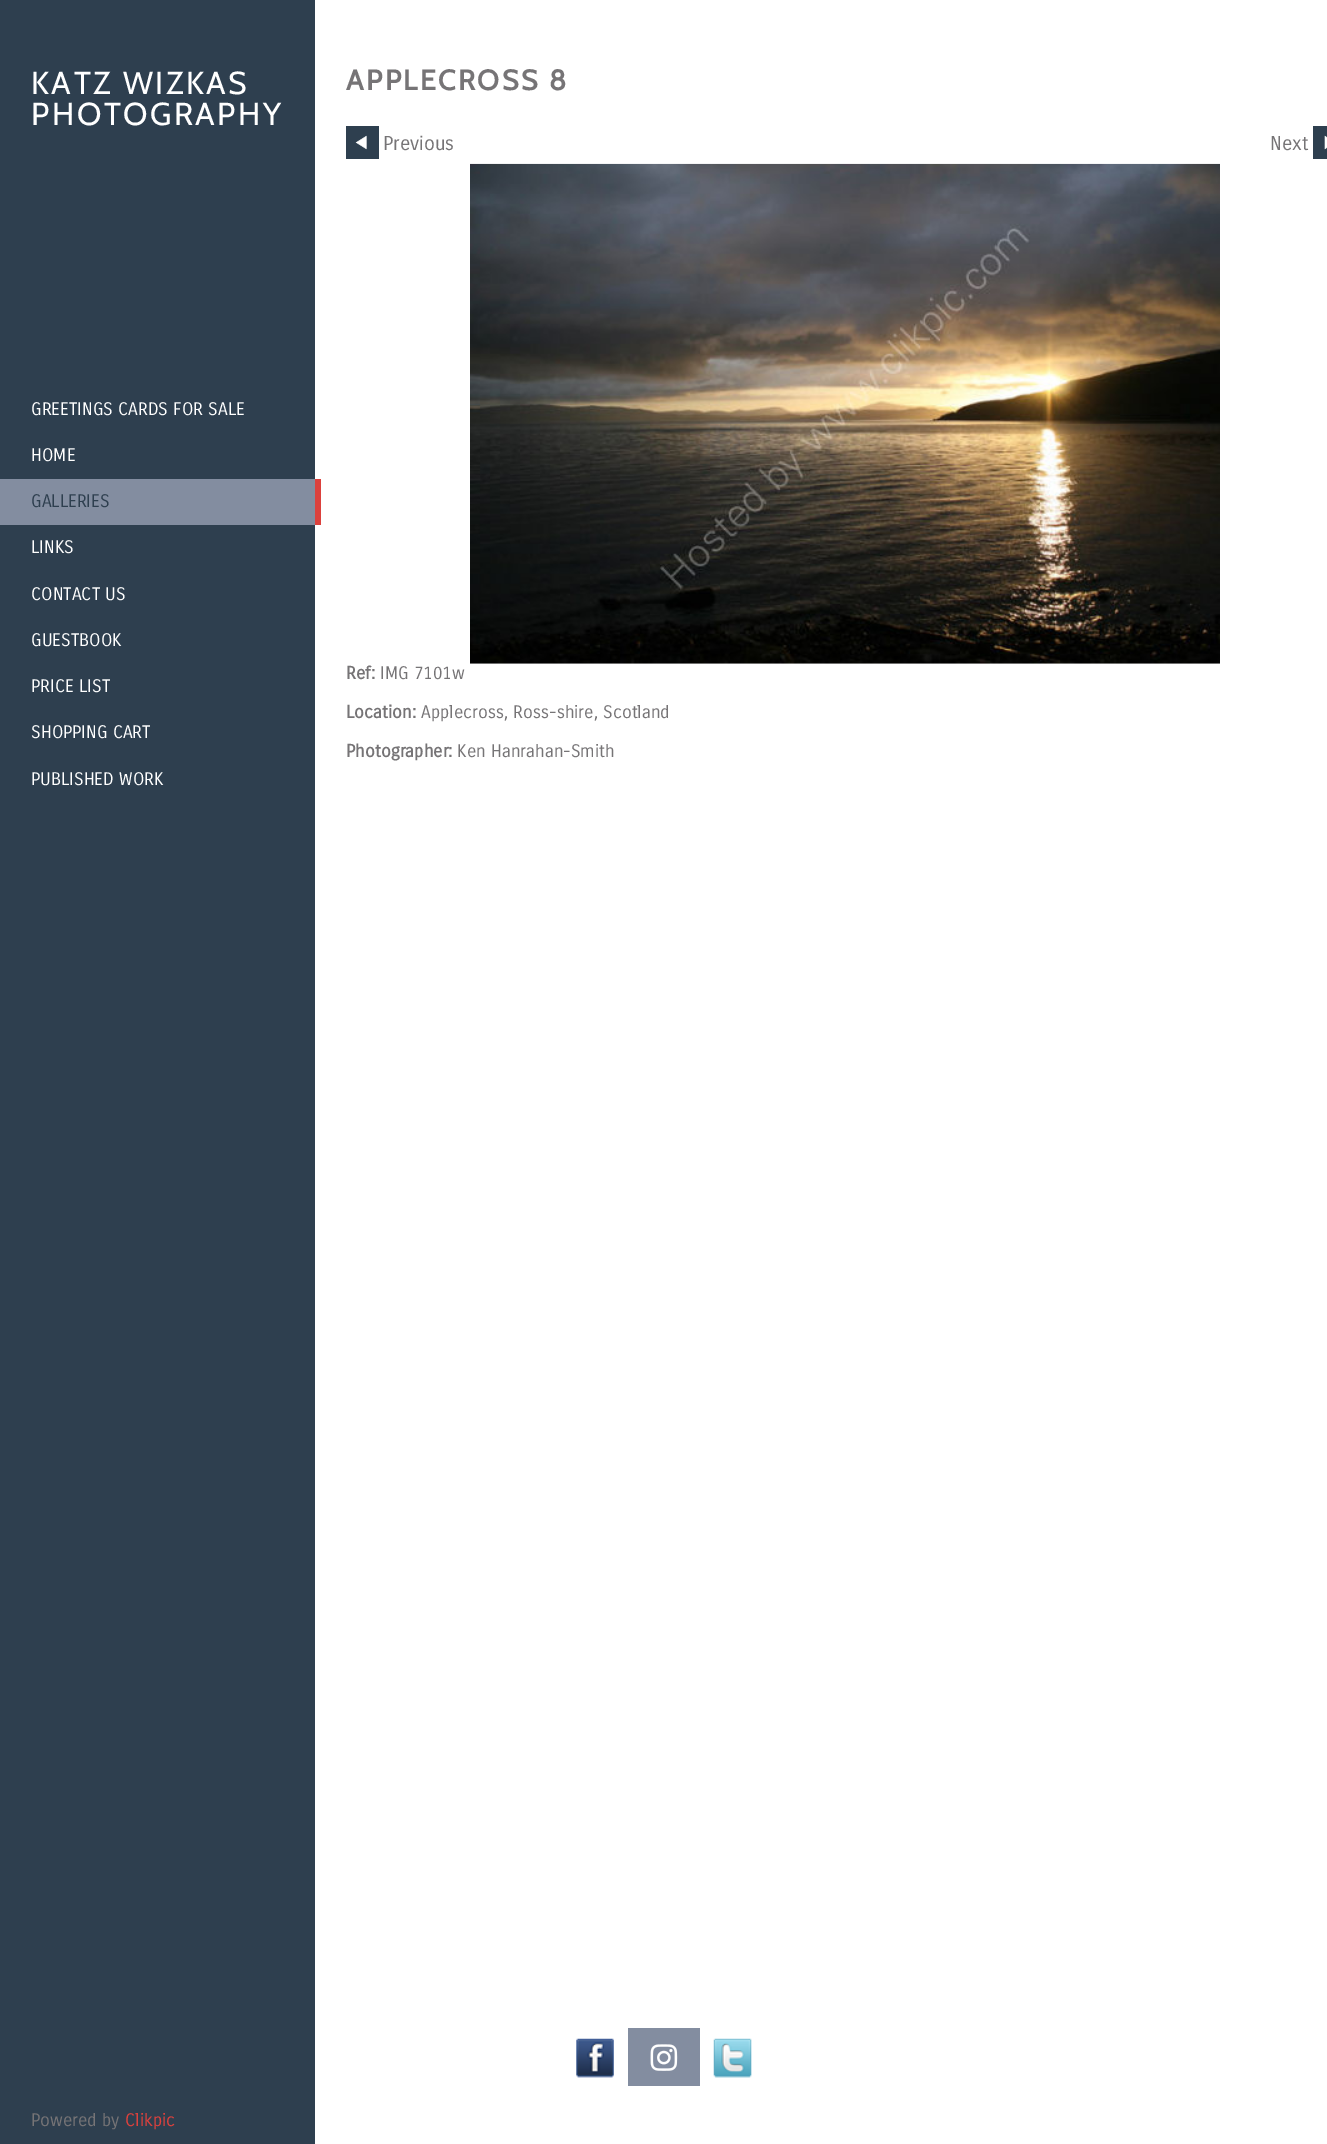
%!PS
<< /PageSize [1327 2144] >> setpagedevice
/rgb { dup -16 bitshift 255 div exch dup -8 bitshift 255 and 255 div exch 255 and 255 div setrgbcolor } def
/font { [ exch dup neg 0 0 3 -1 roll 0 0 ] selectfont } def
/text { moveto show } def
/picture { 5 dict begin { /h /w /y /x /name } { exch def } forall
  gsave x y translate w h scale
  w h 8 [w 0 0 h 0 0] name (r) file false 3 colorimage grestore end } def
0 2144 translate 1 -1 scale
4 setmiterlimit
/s1 { /CarroisGothic-Regular 17.6 font 16#FFFFFF rgb } def
/s2 { /CarroisGothic-Regular 17.6 font 16#2E3F4F rgb } def
/s3 { /CarroisGothic-Regular 19.5 font 16#767476 rgb } def
/s4 { /CarroisGothic-Bold 17.6 font 16#767476 rgb } def
/s5 { /CarroisGothic-Regular 17.6 font 16#767476 rgb } def
/s6 { /CarroisGothic-Regular 17.6 font 16#DC413D rgb } def
16#FFFFFF rgb
0 0 1327 2144 rectfill
16#2E3F4F rgb
0 0 315 2144 rectfill
/Cabin-Regular 31.75 font
16#FFFFFF rgb
31 94 moveto 2.5 0 (KATZ WIZKAS) ashow
31 125 moveto 2.5 0 (PHOTOGRAPHY) ashow
s1
(GREETINGS CARDS FOR SALE) 31 415 text
(HOME) 31 461 text
16#838DA0 rgb
0 479 315 46 rectfill
16#DC413D rgb
315 479 6 46 rectfill
s2
(GALLERIES) 31 507 text
s1
(LINKS) 31 553 text
(CONTACT US) 31 600 text
(GUESTBOOK) 31 646 text
(PRICE LIST) 31 692 text
(SHOPPING CART) 31 738 text
(PUBLISHED WORK) 31 785 text
/Cabin-Bold 28.25 font
16#767476 rgb
346 90 moveto 2.5 0 (APPLECROSS 8) ashow
16#2E3F4F rgb
346 126 33 33 rectfill
(pic1.raw) 355 135 12 15 picture
s3
(Previous) 383 150 text
(Next) 1270 150 text
16#2E3F4F rgb
1313 126 14 33 rectfill
(pic2.raw) 1324 135 3 15 picture
(pic3.raw) 470 163 750 501 picture
s4
(Ref:) 346 679 text
s5
(IMG 7101w) 380 679 text
s4
(Location:) 346 718 text
s5
(Applecross, Ross-shire, Scotland) 421 718 text
s4
(Photographer:) 346 757 text
s5
(Ken Hanrahan-Smith) 457 757 text
(pic4.raw) 576 2038 38 40 picture
16#838DA0 rgb
628 2028 72 58 rectfill
(pic5.raw) 650 2044 28 27 picture
(pic6.raw) 713 2038 39 40 picture
s5
(Powered by) 31 2126 text
s6
(Clikpic) 125 2126 text
showpage
